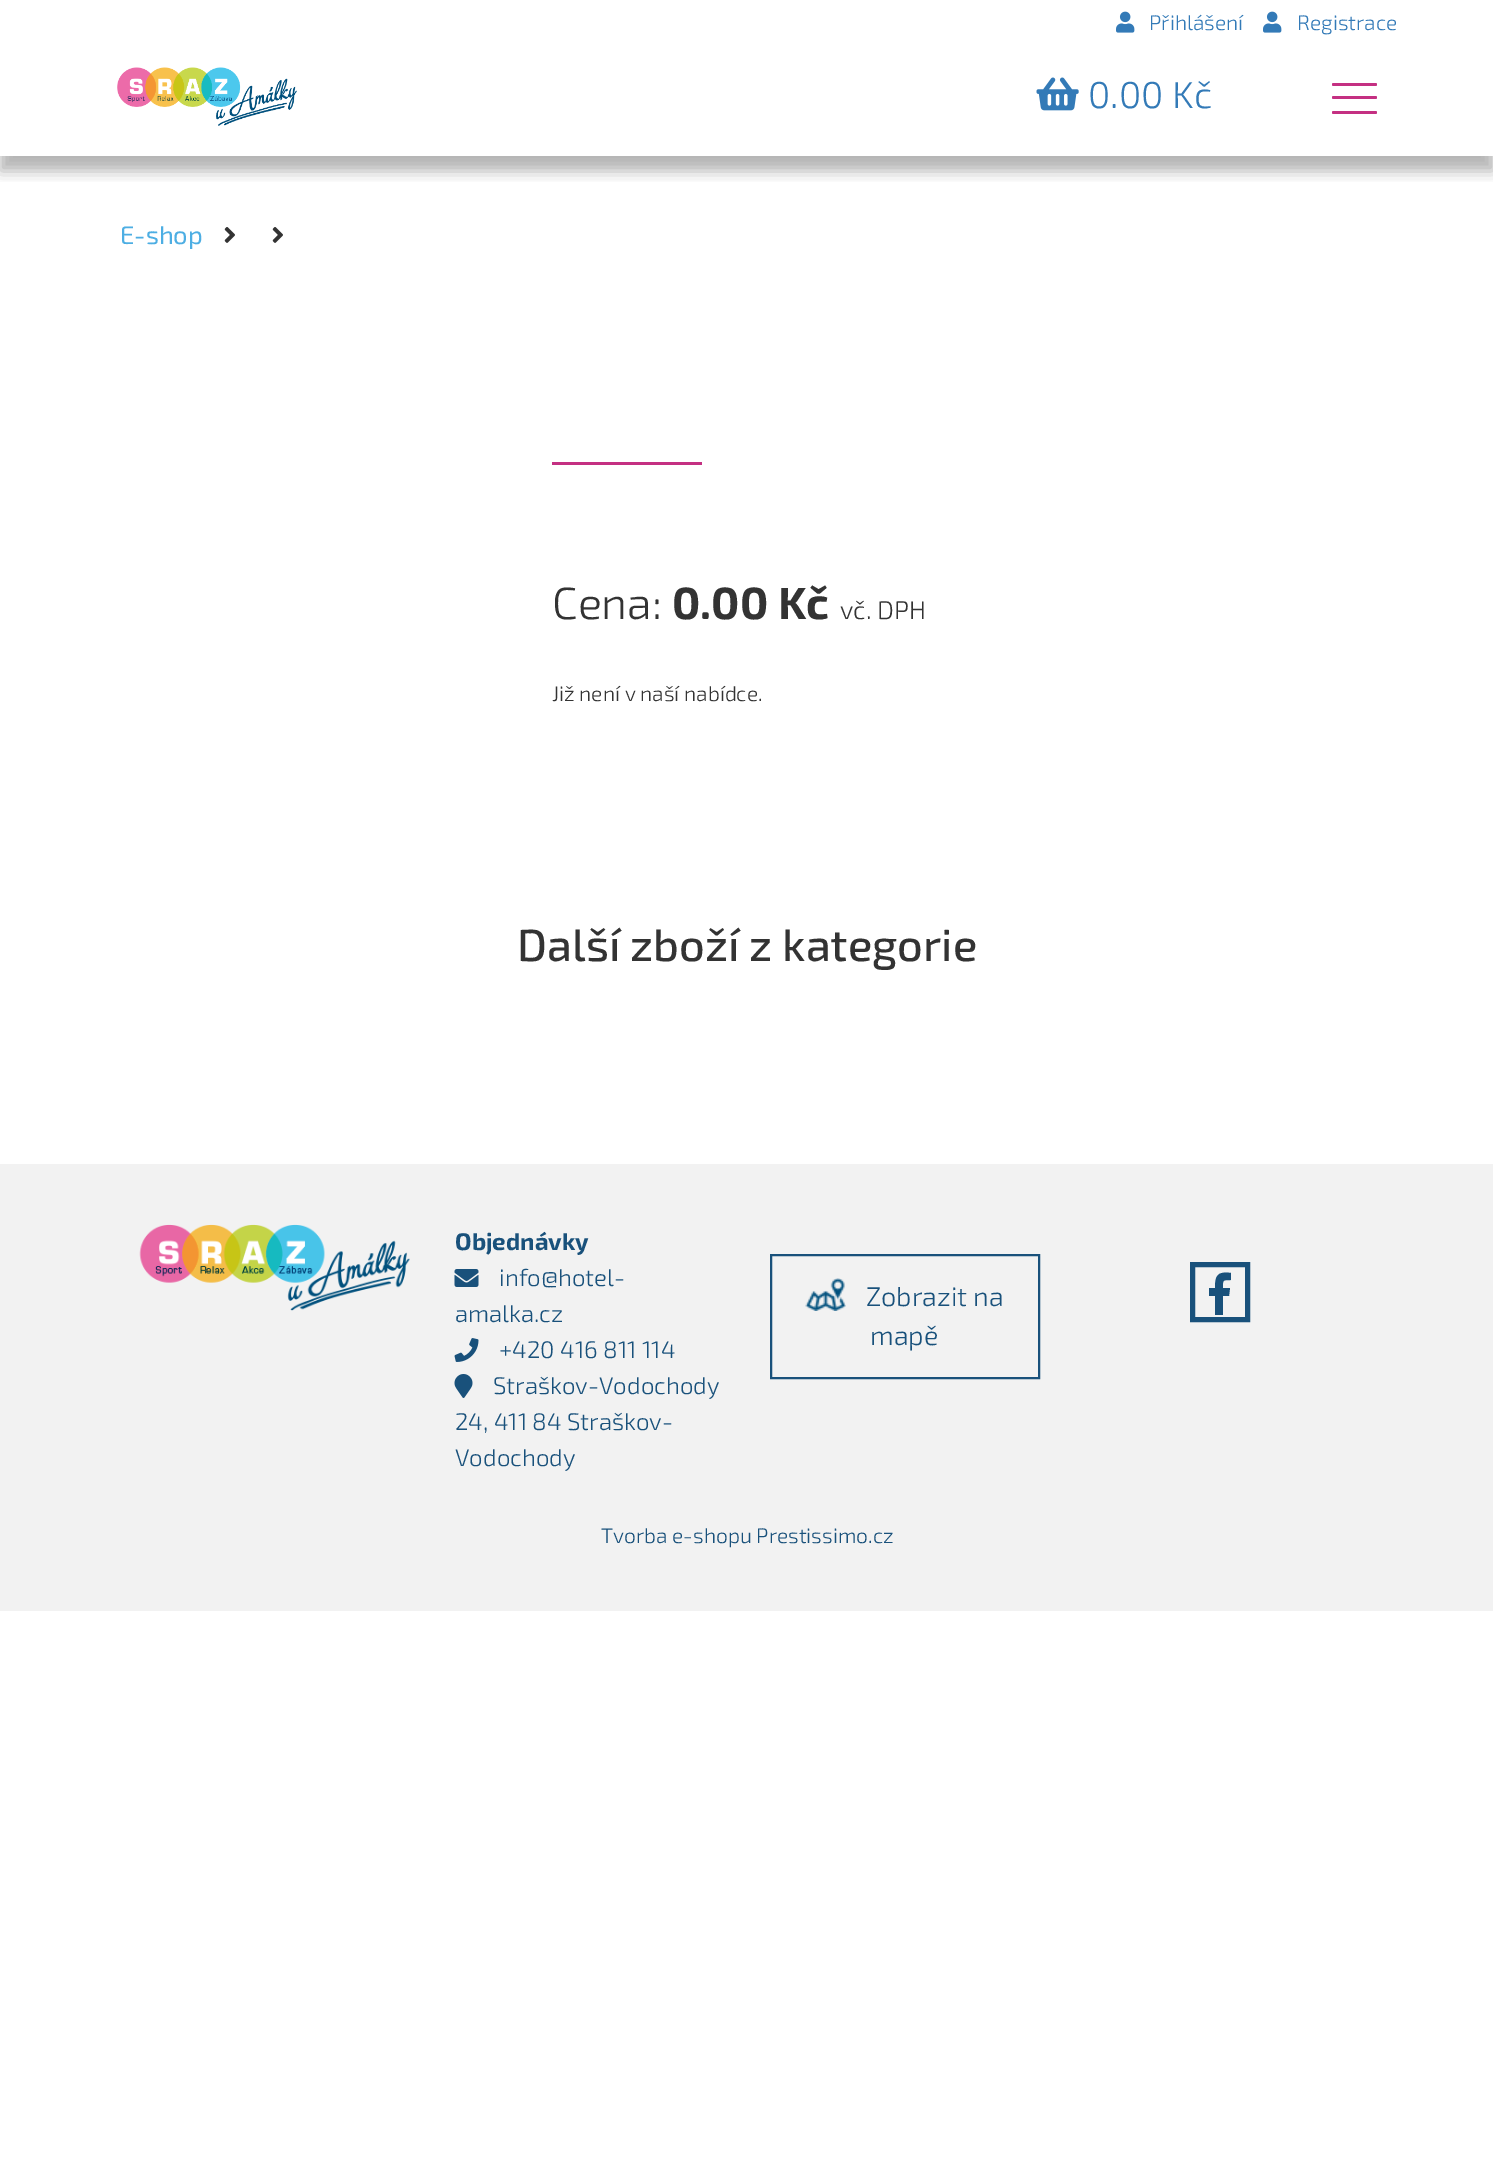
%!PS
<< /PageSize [1493 2183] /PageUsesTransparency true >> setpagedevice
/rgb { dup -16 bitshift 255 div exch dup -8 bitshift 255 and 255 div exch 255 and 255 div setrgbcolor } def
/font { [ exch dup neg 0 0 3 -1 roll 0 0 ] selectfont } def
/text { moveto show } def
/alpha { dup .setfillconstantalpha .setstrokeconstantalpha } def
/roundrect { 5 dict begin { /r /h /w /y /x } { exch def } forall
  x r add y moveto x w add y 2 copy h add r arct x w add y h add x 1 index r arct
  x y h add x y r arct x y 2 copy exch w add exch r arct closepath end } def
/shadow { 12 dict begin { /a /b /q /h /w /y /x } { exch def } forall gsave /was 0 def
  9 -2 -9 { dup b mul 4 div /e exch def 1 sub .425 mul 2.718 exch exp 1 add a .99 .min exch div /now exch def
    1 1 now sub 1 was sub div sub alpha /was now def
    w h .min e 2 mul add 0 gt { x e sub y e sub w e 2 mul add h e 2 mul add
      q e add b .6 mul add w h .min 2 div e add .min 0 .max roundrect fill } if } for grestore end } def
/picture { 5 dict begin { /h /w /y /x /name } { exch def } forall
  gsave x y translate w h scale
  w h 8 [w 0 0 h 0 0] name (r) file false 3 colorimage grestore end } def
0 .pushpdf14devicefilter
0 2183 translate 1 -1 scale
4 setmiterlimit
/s1 { /Exo2-Light 21 font 16#337AB7 rgb } def
/s2 { /Exo2-Light 37.5 font 16#337AB7 rgb } def
/s3 { /Exo2-Regular 25.5 font 16#4DAEE3 rgb } def
/s4 { /Exo2-Light 45 font 16#333333 rgb } def
/s5 { /Exo2-Bold 45 font 16#333333 rgb } def
/s6 { /Exo2-Light 25.5 font 16#333333 rgb } def
/s7 { /Exo2-Light 21 font 16#333333 rgb } def
/s8 { /Exo2-Medium 45 font 16#333333 rgb } def
/s9 { /Exo2-Bold 24 font 16#19517B rgb } def
/s10 { /Exo2-Light 24 font 16#19517B rgb } def
/s11 { /Exo2-Light 27 font 16#19517B rgb } def
/s12 { /Exo2-Light 21 font 16#19517B rgb } def
16#FFFFFF rgb
0 0 1493 2183 rectfill
gsave
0 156 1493 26 rectclip
16#000000 rgb
0 53 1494 118 0 7.5 0.3 shadow
grestore
(pic1.raw) 1116 11 19 22 picture
s1
(Přihlášení) 1149 30 text
(pic1.raw) 1263 11 19 22 picture
(Registrace) 1297 30 text
(pic2.raw) 117 67 180 59 picture
(pic3.raw) 1036 77 43 34 picture
s2
(0.00 Kč) 1088 108 text
16#C43082 rgb
1332 83 45 3 1.5 roundrect fill
1332 96 45 3 1.5 roundrect fill
1332 111 45 3 1.5 roundrect fill
s3
(E-shop) 120 244 text
(pic4.raw) 224 227 11 16 picture
(pic4.raw) 272 227 11 16 picture
16#C43082 rgb
552 462 150 3 rectfill
s4
(Cena:) 552 619 text
s5
(0.00 Kč) 672 619 text
s6
(vč. DPH) 840 619 text
s7
(Již není v naší nabídce.) 552 701 text
s8
(Další zboží z kategorie) 517 961 text
16#F2F2F2 rgb
0 1164 1493 447 rectfill
(pic5.raw) 139 1224 271 87 picture
s9
(Objednávky) 455 1250 text
(pic6.raw) 454 1269 25 18 picture
s10
(info@hotel-) 499 1286 text
(amalka.cz) 455 1322 text
(pic7.raw) 454 1338 25 24 picture
(+420 416 811 114) 499 1358 text
(pic8.raw) 454 1374 19 24 picture
(Straškov-Vodochody) 493 1394 text
(24, 411 84 Straškov-) 455 1430 text
(Vodochody) 455 1466 text
2 setlinewidth
771 1255 268 123 rectstroke
(pic9.raw) 805 1278 41 33 picture
s11
(Zobrazit na) 866 1306 text
(mapě) 870 1345 text
5 setlinewidth
1192.5 1264.5 55 55 rectstroke
1215 1315 moveto 1215 1296 lineto 1209 1296 lineto 1209 1288 lineto 1215 1288 lineto 1215 1276 1217 1271 1231 1273 curveto 1231 1280 lineto 1222 1280 1223 1280 1223 1288 curveto 1230 1288 lineto 1229 1296 lineto 1223 1296 lineto 1223 1315 lineto closepath fill
s12
(Tvorba e-shopu Prestissimo.cz) 601 1543 text
.poppdf14devicefilter showpage
